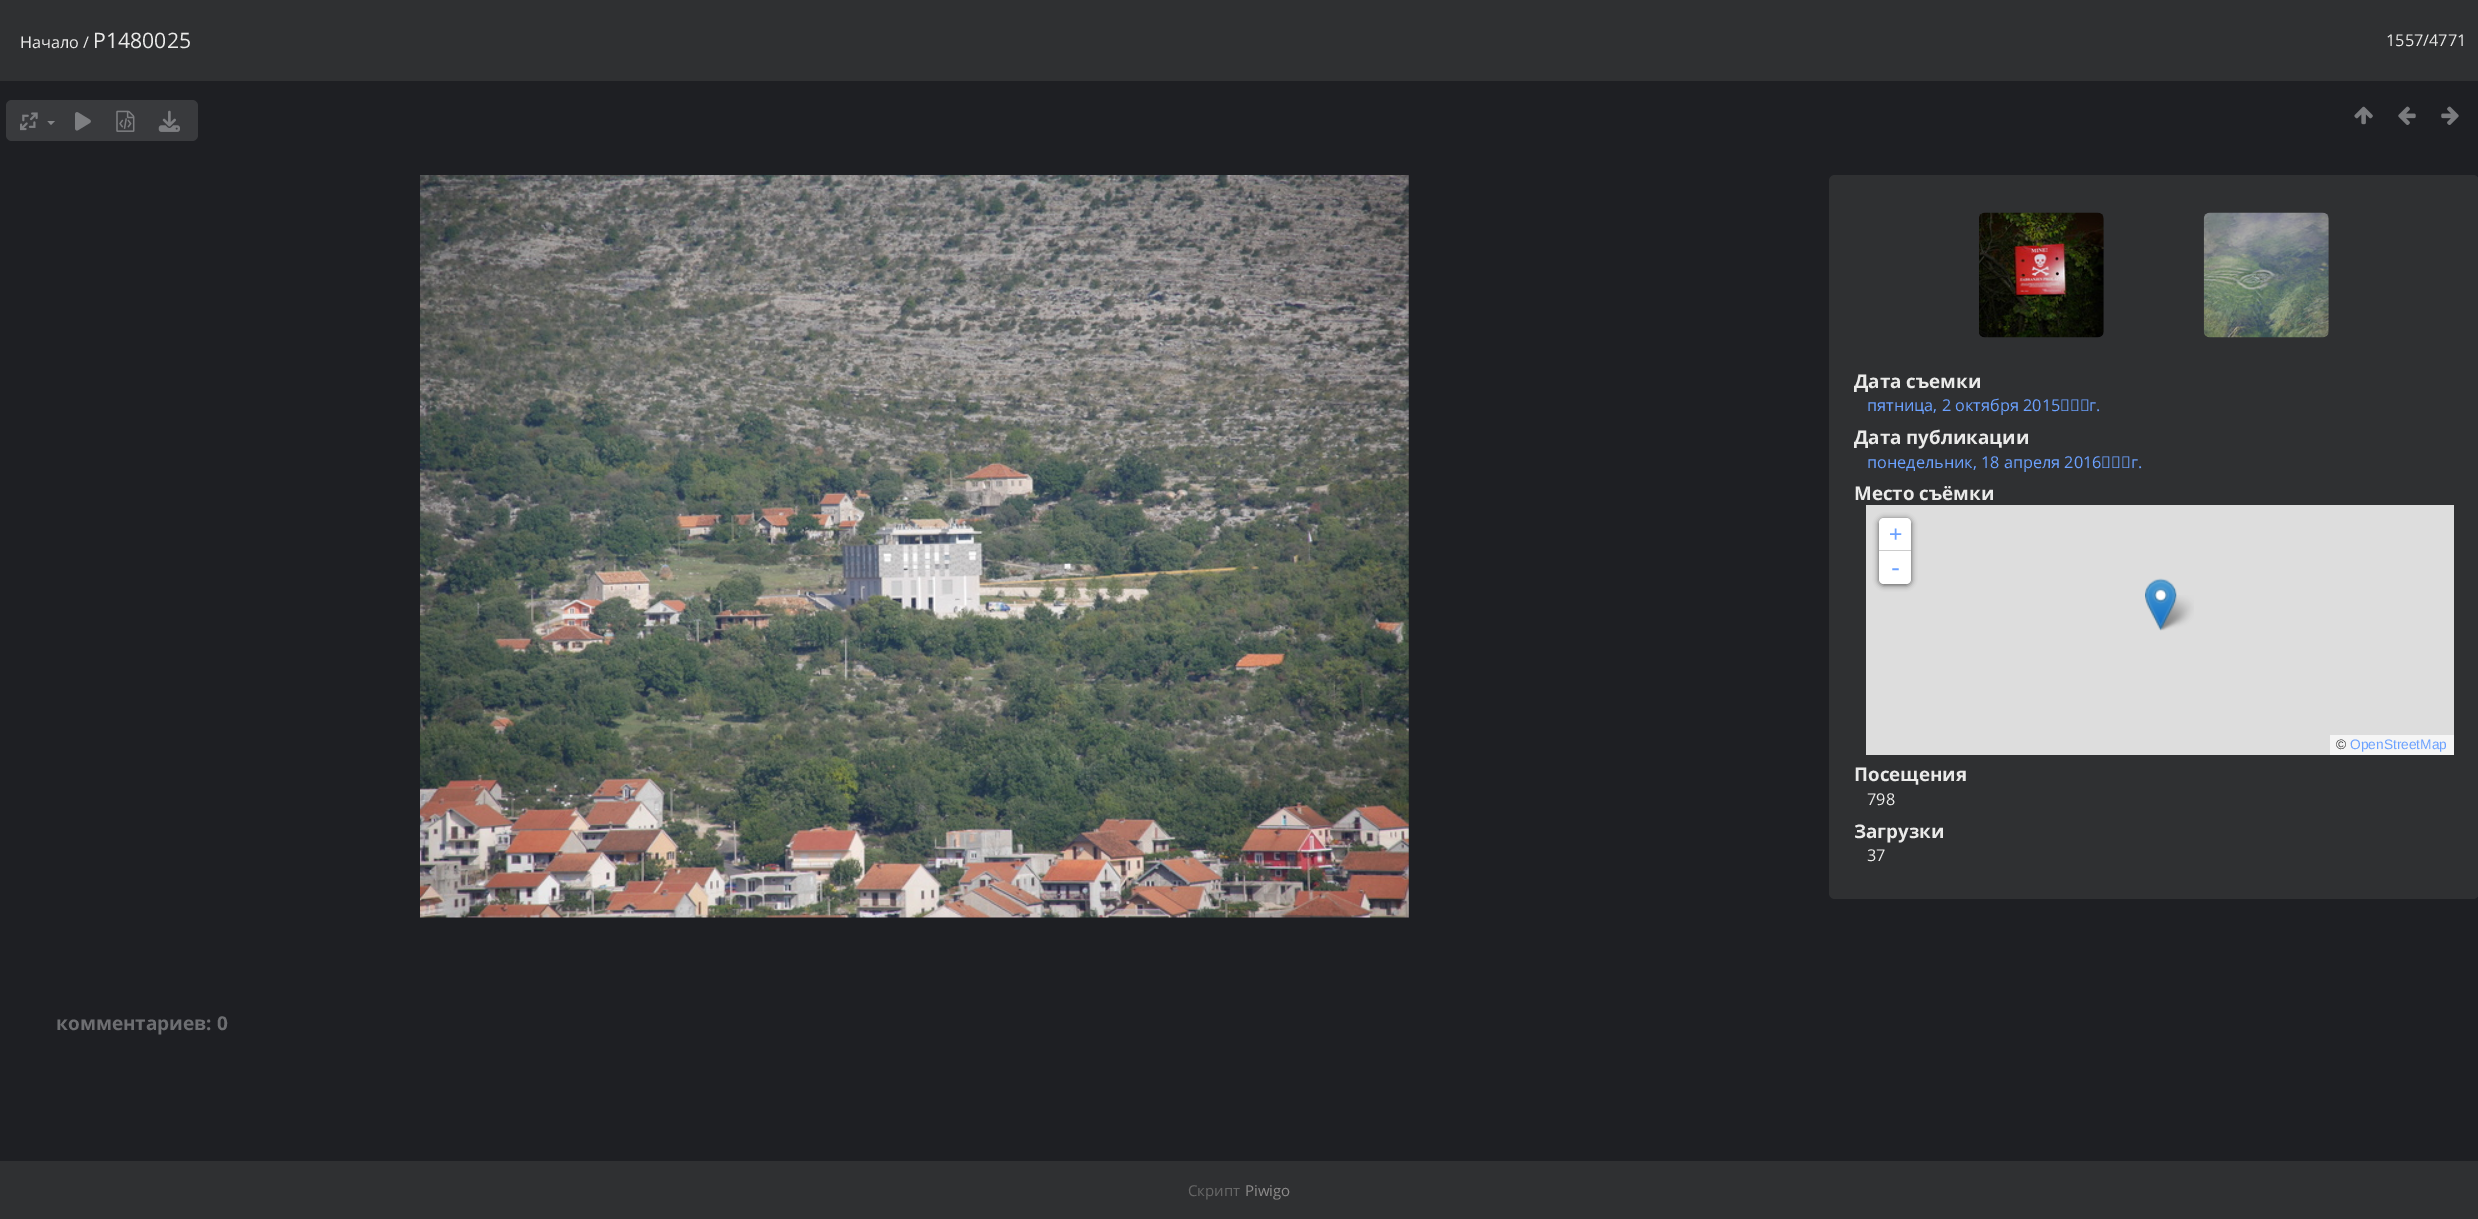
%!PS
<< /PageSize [2478 1219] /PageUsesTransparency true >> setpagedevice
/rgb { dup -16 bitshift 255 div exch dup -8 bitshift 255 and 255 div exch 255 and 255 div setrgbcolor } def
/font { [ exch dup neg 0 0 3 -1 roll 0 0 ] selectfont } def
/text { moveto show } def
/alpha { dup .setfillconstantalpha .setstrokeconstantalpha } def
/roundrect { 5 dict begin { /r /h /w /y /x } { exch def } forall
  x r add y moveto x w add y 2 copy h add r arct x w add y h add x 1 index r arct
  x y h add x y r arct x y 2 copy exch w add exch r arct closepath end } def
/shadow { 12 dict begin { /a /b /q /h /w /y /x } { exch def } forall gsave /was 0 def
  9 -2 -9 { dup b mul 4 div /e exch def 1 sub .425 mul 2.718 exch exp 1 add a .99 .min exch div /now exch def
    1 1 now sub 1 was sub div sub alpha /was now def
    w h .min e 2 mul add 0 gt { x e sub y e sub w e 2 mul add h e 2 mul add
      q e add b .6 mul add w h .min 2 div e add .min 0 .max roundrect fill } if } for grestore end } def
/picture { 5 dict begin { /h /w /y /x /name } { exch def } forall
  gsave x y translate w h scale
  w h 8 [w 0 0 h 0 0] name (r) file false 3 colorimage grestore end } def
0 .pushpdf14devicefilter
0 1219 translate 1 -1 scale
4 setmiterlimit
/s1 { /OpenSans-Regular 16.25 font 16#EAEAE9 rgb } def
/s2 { /OpenSans-Regular 21.25 font 16#EAEAE9 rgb } def
/s3 { /OpenSans-Bold 18.75 font 16#EAEAE9 rgb } def
/s4 { /OpenSans-Regular 16.25 font 16#6BA1FF rgb } def
/s5 { /DejaVuSansMono-Regular 22 font 16#6BA1FF rgb } def
/s6 { /DejaVuSansMono-Regular 25 font 16#6BA1FF rgb } def
/s7 { /LiberationSans-Regular 13.75 font 16#333333 rgb } def
/s8 { /LiberationSans-Regular 13.75 font 16#6BA1FF rgb } def
/s9 { /OpenSans-Bold 19 font 16#6D6E71 rgb } def
/s10 { /OpenSans-Regular 15 font 16#666666 rgb } def
/s11 { /OpenSans-Regular 15 font 16#8D8B8B rgb } def
16#1E1F23 rgb
0 0 2478 1219 rectfill
16#2F3032 rgb
0 0 2478 81 rectfill
s1
(Начало /) 20 48 text
s2
(P1480025) 93 48 text
s1
(1557/4771) 2386 46 text
16#393A3D rgb
6 100 192 41 6 roundrect fill
(pic1.raw) 20 112 18 19 picture
16#848588 rgb
47.5 121 moveto 55 121 lineto 51 125 lineto closepath fill
(pic2.raw) 75 112 16 19 picture
(pic3.raw) 116 110 19 22 picture
(pic4.raw) 158 110 22 22 picture
(pic5.raw) 2354 106 19 19 picture
(pic6.raw) 2398 106 18 19 picture
(pic7.raw) 2441 106 18 19 picture
(pic8.raw) 420 175 989 743 picture
16#2F3032 rgb
1829 175 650 724 6 roundrect fill
(pic9.raw) 1979 212 125 126 picture
(pic10.raw) 2203 212 126 126 picture
s3
(Дата съемки) 1854 388 text
s4
(пятница, 2 октября 2015 г.) 1867 411 text
s3
(Дата публикации) 1854 444 text
s4
(понедельник, 18 апреля 2016 г.) 1867 468 text
s3
(Место съёмки) 1854 500 text
16#DDDDDD rgb
1866 505 588 250 rectfill
16#000000 rgb
1879 519 32 66 5 3 0.65 shadow
16#FFFFFF rgb
1884 518 moveto 1906 518 lineto 1909 518 1911 520 1911 523 curveto 1911 551 lineto 1879 551 lineto 1879 523 lineto 1879 520 1881 518 1884 518 curveto closepath fill
16#CCCCCC rgb
1879 550 32 1 rectfill
s5
(+) 1889 541 text
16#FFFFFF rgb
1879 551 moveto 1911 551 lineto 1911 579 lineto 1911 582 1909 584 1906 584 curveto 1884 584 lineto 1881 584 1879 582 1879 579 curveto closepath fill
s6
(-) 1888 576 text
16#F5F5F5 rgb
2330 735 124 20 rectfill
s7
(©) 2336 749 text
s8
(OpenStreetMap) 2350 749 text
(pic12.raw) 2156 595 38 36 picture
(pic11.raw) 2145 578 32 53 picture
s3
(Посещения) 1854 781 text
s1
(798) 1867 805 text
s3
(Загрузки) 1854 838 text
s1
(37) 1867 861 text
s9
(комментариев: 0) 56 1030 text
16#2F3032 rgb
0 1161 2478 58 rectfill
s10
(Скрипт) 1188 1196 text
s11
(Piwigo) 1245 1196 text
.poppdf14devicefilter showpage
